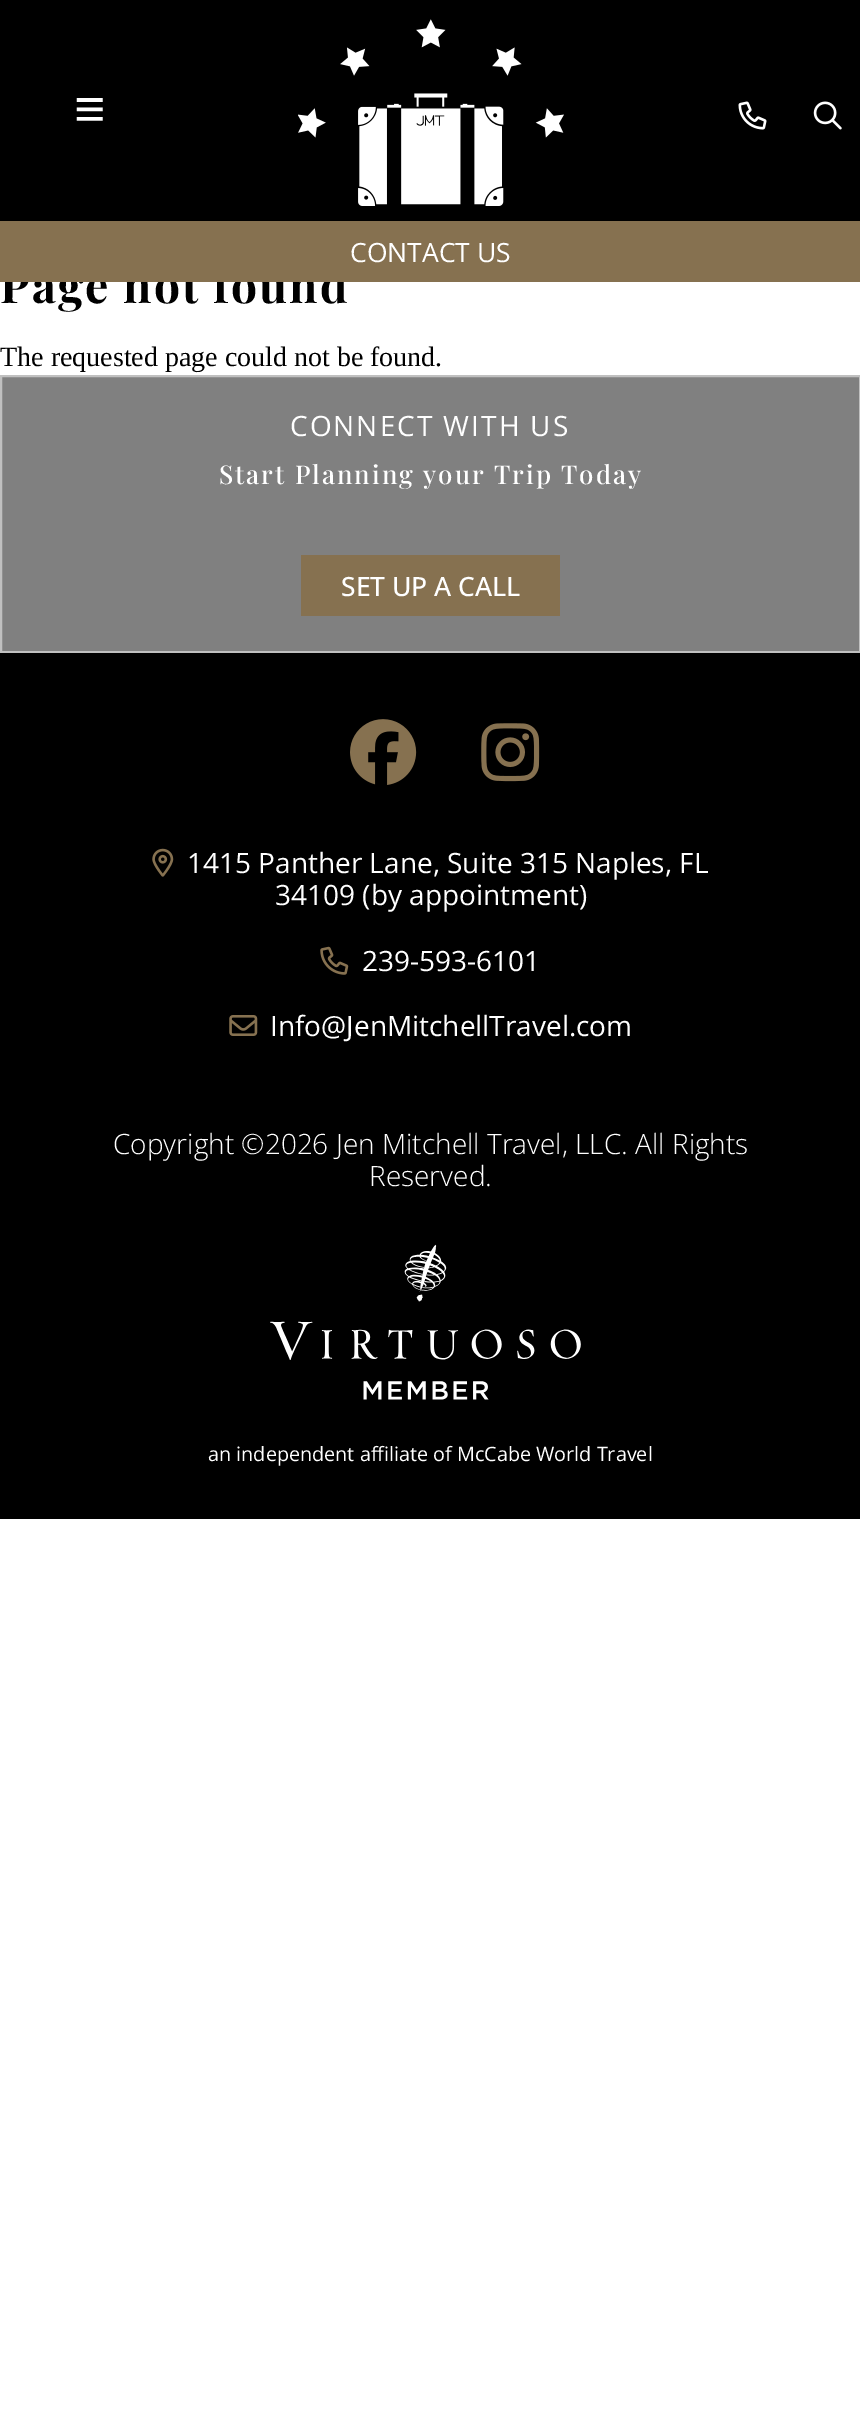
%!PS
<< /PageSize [860 2423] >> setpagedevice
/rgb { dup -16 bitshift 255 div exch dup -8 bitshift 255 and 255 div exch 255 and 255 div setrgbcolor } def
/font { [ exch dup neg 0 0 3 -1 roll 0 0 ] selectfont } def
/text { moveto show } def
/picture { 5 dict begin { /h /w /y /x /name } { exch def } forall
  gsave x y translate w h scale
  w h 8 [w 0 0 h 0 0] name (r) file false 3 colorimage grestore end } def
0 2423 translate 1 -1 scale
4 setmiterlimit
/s1 { /LiberationSerif-Bold 56 font 16#FFFFFF rgb } def
/s2 { /OpenSans-Regular 26.5 font 16#FFFFFF rgb } def
/s3 { /LiberationSerif-Regular 28 font 16#000000 rgb } def
/s4 { /OpenSans-Medium 26.5 font 16#FFFFFF rgb } def
/s5 { /OpenSans-Regular 28 font 16#FFFFFF rgb } def
/s6 { /OpenSans-Light 28 font 16#FFFFFF rgb } def
/s7 { /OpenSans-Regular 19.8 font 16#FFFFFF rgb } def
16#FFFFFF rgb
0 0 860 2423 rectfill
16#000000 rgb
0 0 860 221 rectfill
s1
(≡) 74 128 text
(pic1.raw) 298 19 266 187 picture
(pic2.raw) 738 101 29 29 picture
(pic3.raw) 813 101 29 29 picture
/PlayfairDisplay-Bold 46.25 font
16#000000 rgb
0 303 moveto 2 0 (Page not found) ashow
16#867150 rgb
0 221 860 61 rectfill
s2
(CONTACT US) 350 262 text
s3
(The requested page could not be found.) 0 366 text
16#808080 rgb
1 376 moveto 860 376 lineto 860 652 lineto 1 652 lineto closepath gsave fill grestore
16#C0C0C0 rgb
2 setlinewidth
stroke
/OpenSans-Regular 28 font
16#FFFFFF rgb
290 436 moveto 2 0 (CONNECT WITH US) ashow
/PlayfairDisplay-Medium 25.8 font
219 484 moveto 2 0 (Start Planning your Trip Today) ashow
16#867150 rgb
301 555 259 61 rectfill
s4
(SET UP A CALL) 341 596 text
16#000000 rgb
0 653 860 866 rectfill
(pic4.raw) 350 719 67 66 picture
(pic5.raw) 481 723 59 59 picture
(pic6.raw) 152 848 22 29 picture
s5
(1415 Panther Lane, Suite 315 Naples, FL) 187 873 text
(34109 \(by appointment\)) 275 905 text
(pic7.raw) 320 946 29 29 picture
(239-593-6101) 362 971 text
(pic8.raw) 229 1015 29 21 picture
(Info@JenMitchellTravel.com) 270 1036 text
s6
(Copyright ©2026 Jen Mitchell Travel, LLC. All Rights) 113 1154 text
(Reserved.) 369 1186 text
(pic9.raw) 270 1244 311 156 picture
s7
(an independent affiliate of McCabe World Travel) 208 1461 text
showpage
